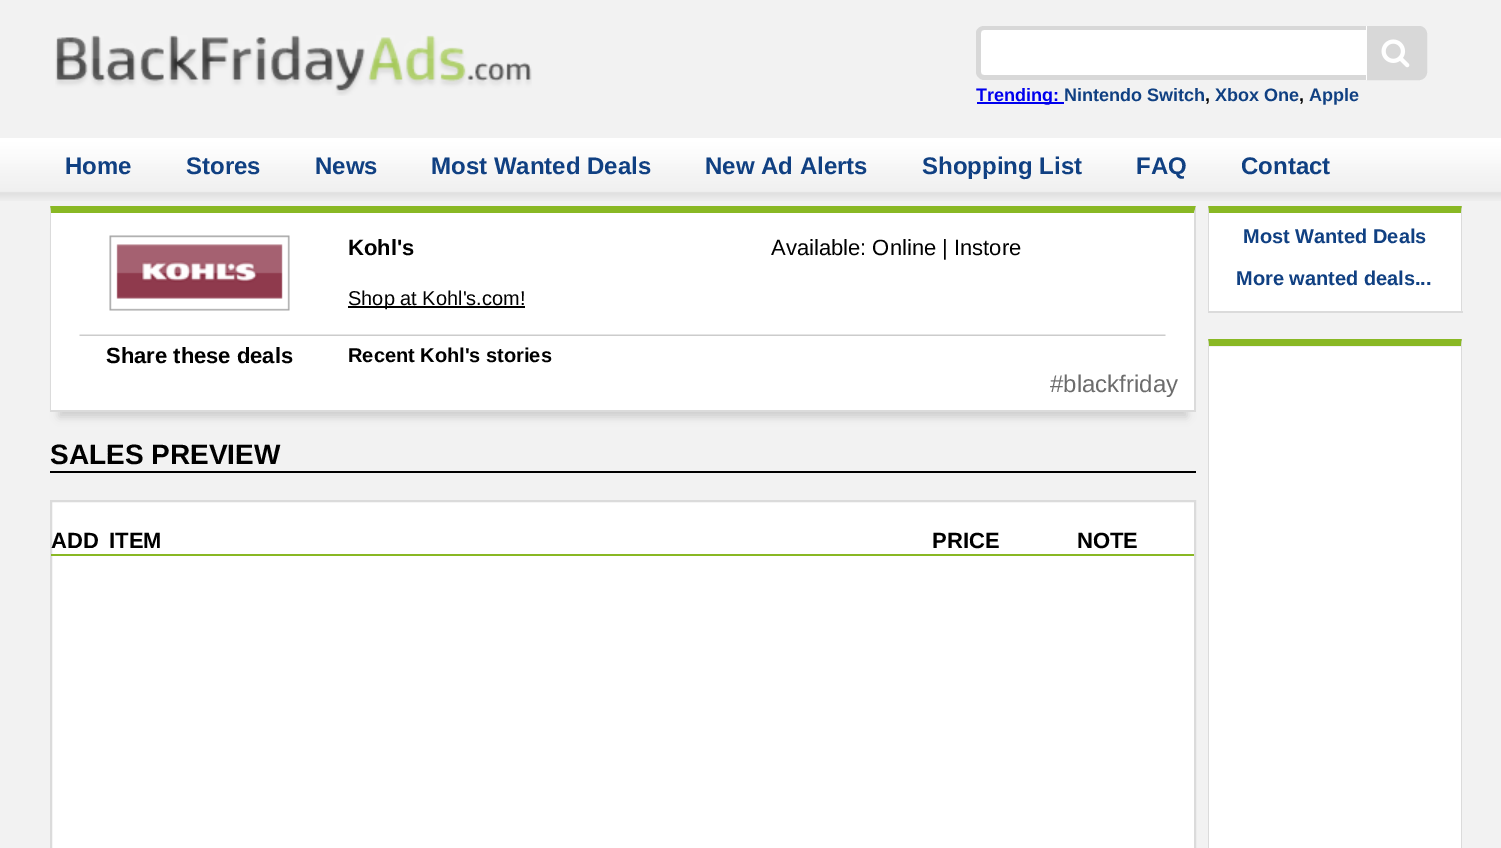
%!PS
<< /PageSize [1501 848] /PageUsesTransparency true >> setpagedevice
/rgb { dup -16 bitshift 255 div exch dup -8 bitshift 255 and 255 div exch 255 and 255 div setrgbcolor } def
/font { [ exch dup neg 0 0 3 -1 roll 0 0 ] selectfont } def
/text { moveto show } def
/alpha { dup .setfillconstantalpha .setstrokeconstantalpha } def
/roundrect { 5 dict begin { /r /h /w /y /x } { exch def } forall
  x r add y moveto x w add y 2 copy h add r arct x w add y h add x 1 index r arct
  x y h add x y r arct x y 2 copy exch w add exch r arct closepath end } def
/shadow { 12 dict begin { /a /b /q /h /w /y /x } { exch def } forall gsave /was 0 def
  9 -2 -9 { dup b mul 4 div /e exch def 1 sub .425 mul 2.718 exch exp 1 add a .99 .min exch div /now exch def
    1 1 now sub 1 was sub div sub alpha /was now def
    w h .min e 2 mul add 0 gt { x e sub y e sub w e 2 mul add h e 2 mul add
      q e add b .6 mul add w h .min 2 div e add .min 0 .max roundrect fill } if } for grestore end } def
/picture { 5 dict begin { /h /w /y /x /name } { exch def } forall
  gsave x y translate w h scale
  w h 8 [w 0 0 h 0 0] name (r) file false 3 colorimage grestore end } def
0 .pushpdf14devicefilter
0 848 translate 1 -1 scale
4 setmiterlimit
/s1 { /LiberationSans-Bold 18 font 16#0000EE rgb } def
/s2 { /LiberationSans-Bold 18 font 16#104082 rgb } def
/s3 { /LiberationSans-Bold 18 font 16#000000 rgb } def
/s4 { /LiberationSans-Bold 24 font 16#104082 rgb } def
/s5 { /LiberationSans-Bold 22 font 16#000000 rgb } def
/s6 { /LiberationSans-Regular 20 font 16#000000 rgb } def
/s7 { /LiberationSans-Regular 22 font 16#000000 rgb } def
/s8 { /LiberationSans-Bold 20 font 16#000000 rgb } def
/s9 { /LiberationSans-Regular 24 font 16#6C6C6C rgb } def
/s10 { /LiberationSans-Bold 28 font 16#000000 rgb } def
/s11 { /LiberationSans-Bold 20 font 16#104082 rgb } def
16#F2F2F2 rgb
0 0 1501 848 rectfill
(pic1.raw) 55 35 477 61 picture
16#FFFFFF rgb
985 26 moveto 1367 26 lineto 1367 80 lineto 985 80 lineto 980.5 80 977 76.5 977 72 curveto 977 34 lineto 977 29.5 980.5 26 985 26 curveto closepath fill
16#D8D8D8 rgb
984 26 moveto 1366 26 lineto 1366 80 lineto 984 80 lineto 980 80 976 76 976 72 curveto 976 33 lineto 976 29 980 26 984 26 curveto closepath 984 30 moveto 1366 30 lineto 1366 75 lineto 984 75 lineto 982 75 981 74 981 72 curveto 981 33 lineto 981 31 982 30 984 30 curveto closepath eofill
1368 27 moveto 1419 27 lineto 1423 27 1426 30 1426 34 curveto 1426 72 lineto 1426 76 1423 79 1419 79 curveto 1368 79 lineto closepath gsave fill grestore
2 setlinewidth
stroke
(pic2.raw) 1381 39 29 29 picture
16#0000EE rgb
977 102 87 2 rectfill
s1
(Trending:) 976 101 text
s2
(Nintendo Switch) 1064 101 text
s3
(,) 1205 101 text
s2
(Xbox One) 1215 101 text
s3
(,) 1299 101 text
s2
(Apple) 1309 101 text
(pic3.raw) 0 138 1501 63 picture
s4
(Home) 65 174 text
(Stores) 186 174 text
(News) 315 174 text
(Most Wanted Deals) 431 174 text
(New Ad Alerts) 705 174 text
(Shopping List) 922 174 text
(FAQ) 1136 174 text
(Contact) 1241 174 text
16#CCCCCC rgb
59 230 1128 187 0 4.5 1 shadow
16#FFFFFF rgb
51 213 1143 197 rectfill
16#89B824 rgb
50 206 moveto 1196 206 lineto 1194 213 lineto 51 213 lineto closepath fill
16#DBDBDB rgb
1196 206 moveto 1196 411 lineto 1194 410 lineto 1194 213 lineto closepath fill
50 410 1146 2 rectfill
50 411 moveto 50 206 lineto 51 213 lineto 51 410 lineto closepath fill
(pic4.raw) 109 235 181 76 picture
s5
(Kohl's) 348 255 text
348 306 177 2 rectfill
s6
(Shop at Kohl's.com!) 348 305 text
s7
(Available: Online | Instore) 771 255 text
(pic5.raw) 79 334 1087 2 picture
s5
(Share these deals) 106 363 text
s8
(Recent Kohl's stories) 348 362 text
s9
(#blackfriday) 1050 392 text
16#000000 rgb
50 471 1146 2 rectfill
s10
(SALES PREVIEW) 50 464 text
16#FFFFFF rgb
51 501 moveto 1195 501 lineto 1195 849 lineto 51 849 lineto closepath gsave fill grestore
16#DBDBDB rgb
stroke
16#89B824 rgb
51 554 1143 2 rectfill
s5
(ADD) 51 548 text
(ITEM) 109 548 text
(PRICE) 932 548 text
(NOTE) 1077 548 text
16#FFFFFF rgb
1209 213 252 98 rectfill
16#89B824 rgb
1208 206 moveto 1462 206 lineto 1461 213 lineto 1209 213 lineto closepath fill
16#DBDBDB rgb
1462 206 moveto 1462 312 lineto 1461 310 lineto 1461 213 lineto closepath fill
1208 311 255 2 rectfill
1208 312 moveto 1208 206 lineto 1209 213 lineto 1209 310 lineto closepath fill
s11
(Most Wanted Deals) 1243 243 text
(More wanted deals...) 1236 285 text
16#FFFFFF rgb
1209 347 252 501 rectfill
16#89B824 rgb
1208 339 moveto 1462 339 lineto 1461 346 lineto 1209 346 lineto closepath fill
16#DBDBDB rgb
1462 339 moveto 1462 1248 lineto 1461 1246 lineto 1461 346 lineto closepath fill
1208 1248 moveto 1208 339 lineto 1209 346 lineto 1209 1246 lineto closepath fill
.poppdf14devicefilter showpage
